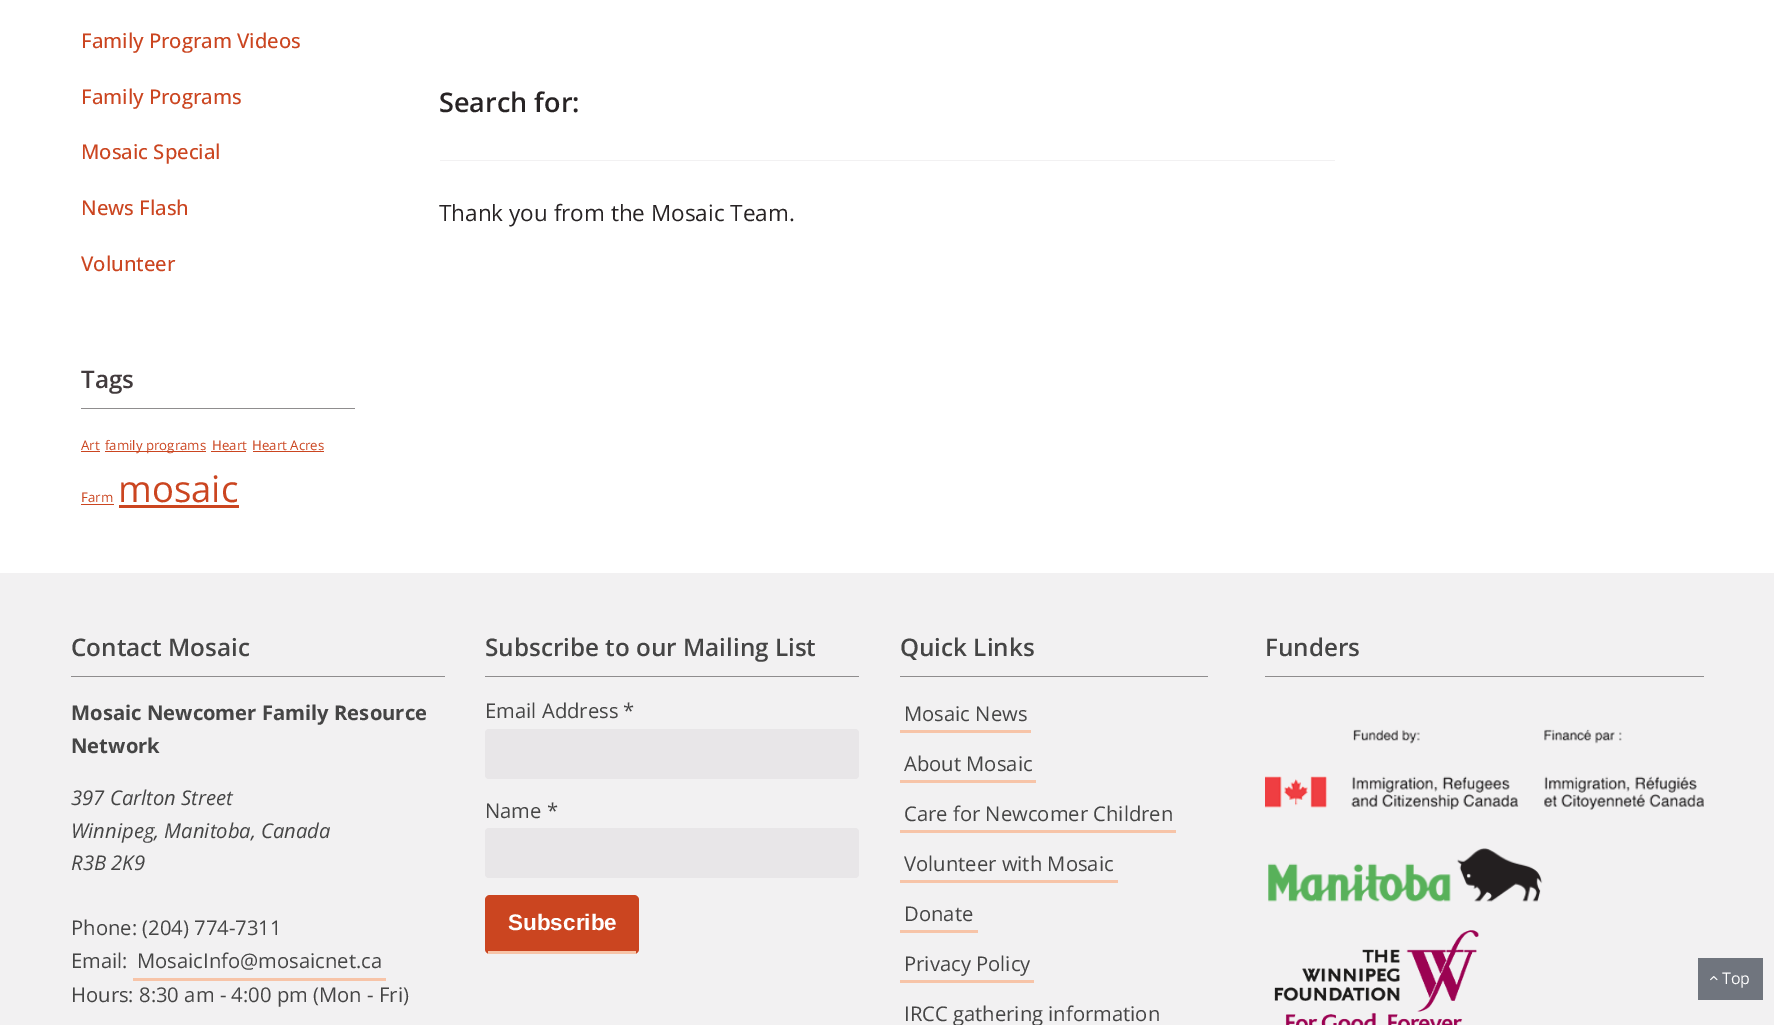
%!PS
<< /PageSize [1774 1025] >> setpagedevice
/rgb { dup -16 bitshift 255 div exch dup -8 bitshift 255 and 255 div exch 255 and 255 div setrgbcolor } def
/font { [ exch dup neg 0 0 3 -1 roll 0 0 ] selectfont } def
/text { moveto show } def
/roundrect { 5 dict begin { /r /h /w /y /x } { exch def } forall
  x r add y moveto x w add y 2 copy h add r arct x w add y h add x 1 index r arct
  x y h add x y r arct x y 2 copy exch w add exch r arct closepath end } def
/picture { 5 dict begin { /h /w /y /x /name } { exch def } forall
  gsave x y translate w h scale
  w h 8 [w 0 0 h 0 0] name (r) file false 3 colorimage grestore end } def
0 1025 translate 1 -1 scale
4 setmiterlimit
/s1 { /OpenSans-Medium 20.25 font 16#CB4520 rgb } def
/s2 { /OpenSans-SemiBold 24.25 font 16#423B3D rgb } def
/s3 { /OpenSans-Regular 13.25 font 16#CB4520 rgb } def
/s4 { /OpenSans-Regular 36.5 font 16#CB4520 rgb } def
/s5 { /OpenSans-SemiBold 27 font 16#272324 rgb } def
/s6 { /OpenSans-Regular 22.5 font 16#272324 rgb } def
/s7 { /OpenSans-SemiBold 24.25 font 16#454545 rgb } def
/s8 { /OpenSans-Bold 20.25 font 16#454545 rgb } def
/s9 { /OpenSans-Italic 20.25 font 16#454545 rgb } def
/s10 { /OpenSans-Regular 20.25 font 16#454545 rgb } def
/s11 { /LiberationSans-Bold 22.5 font 16#FFFFFF rgb } def
/s12 { /OpenSans-Regular 16 font 16#FFFFFF rgb } def
16#FFFFFF rgb
0 0 1774 1025 rectfill
s1
(Family Program Videos) 81 48 text
(Family Programs) 81 104 text
(Mosaic Special) 81 159 text
(News Flash) 81 215 text
(Volunteer) 81 271 text
16#8F8D8E rgb
81 408 274 1 rectfill
s2
(Tags) 81 388 text
s3
(Art) 81 450 text
81 451 19 1 rectfill
105 451 101 1 rectfill
(family programs) 105 450 text
(Heart) 212 450 text
211 451 35 1 rectfill
(Heart Acres) 252 450 text
253 451 71 1 rectfill
(Farm) 81 502 text
81 504 33 1 rectfill
s4
(mosaic) 118 502 text
119 505 120 3 rectfill
s5
(Search for:) 439 112 text
16#F2F1F2 rgb
440 160 895 1 rectfill
s6
(Thank you from the Mosaic Team.) 439 221 text
16#F2F1F2 rgb
0 573 1774 452 rectfill
16#8F8D8E rgb
71 676 374 1 rectfill
s7
(Contact Mosaic) 71 656 text
s8
(Mosaic Newcomer Family Resource) 71 720 text
(Network) 71 753 text
s9
(397 Carlton Street) 71 805 text
(Winnipeg, Manitoba, Canada) 71 838 text
(R3B 2K9) 71 870 text
s10
(Phone: \(204\) 774-7311) 71 935 text
(Email:) 71 968 text
16#F7C4A8 rgb
133 978 253 3 rectfill
s10
(MosaicInfo@mosaicnet.ca) 137 968 text
(Hours: 8:30 am - 4:00 pm \(Mon - Fri\)) 71 1002 text
16#8F8D8E rgb
485 676 374 1 rectfill
s7
(Subscribe to our Mailing List) 485 656 text
s10
(Email Address *) 485 718 text
16#E8E6E8 rgb
485 729 374 50 4 roundrect fill
s10
(Name *) 485 818 text
16#E8E6E8 rgb
485 828 374 50 4 roundrect fill
16#CB4520 rgb
485 895 154 59 5 roundrect fill
16#F7C4A8 rgb
488 951 148 3 rectfill
s11
(Subscribe) 508 930 text
16#8F8D8E rgb
900 676 308 1 rectfill
s7
(Quick Links) 900 656 text
16#F7C4A8 rgb
900 730 131 3 rectfill
s10
(Mosaic News) 904 721 text
16#F7C4A8 rgb
900 780 136 3 rectfill
s10
(About Mosaic) 904 771 text
16#F7C4A8 rgb
900 830 276 3 rectfill
s10
(Care for Newcomer Children) 904 821 text
16#F7C4A8 rgb
900 880 218 3 rectfill
s10
(Volunteer with Mosaic) 904 871 text
16#F7C4A8 rgb
900 930 78 3 rectfill
s10
(Donate) 904 921 text
16#F7C4A8 rgb
900 980 134 3 rectfill
s10
(Privacy Policy) 904 971 text
(IRCC gathering information) 904 1021 text
16#8F8D8E rgb
1265 676 439 1 rectfill
s7
(Funders) 1265 656 text
(pic1.raw) 1265 729 439 81 picture
(pic2.raw) 1268 848 275 54 picture
(pic3.raw) 1274 930 205 95 picture
16#70757E rgb
1698 958 65 42 rectfill
(pic4.raw) 1710 976 8 5 picture
s12
(Top) 1722 984 text
showpage
